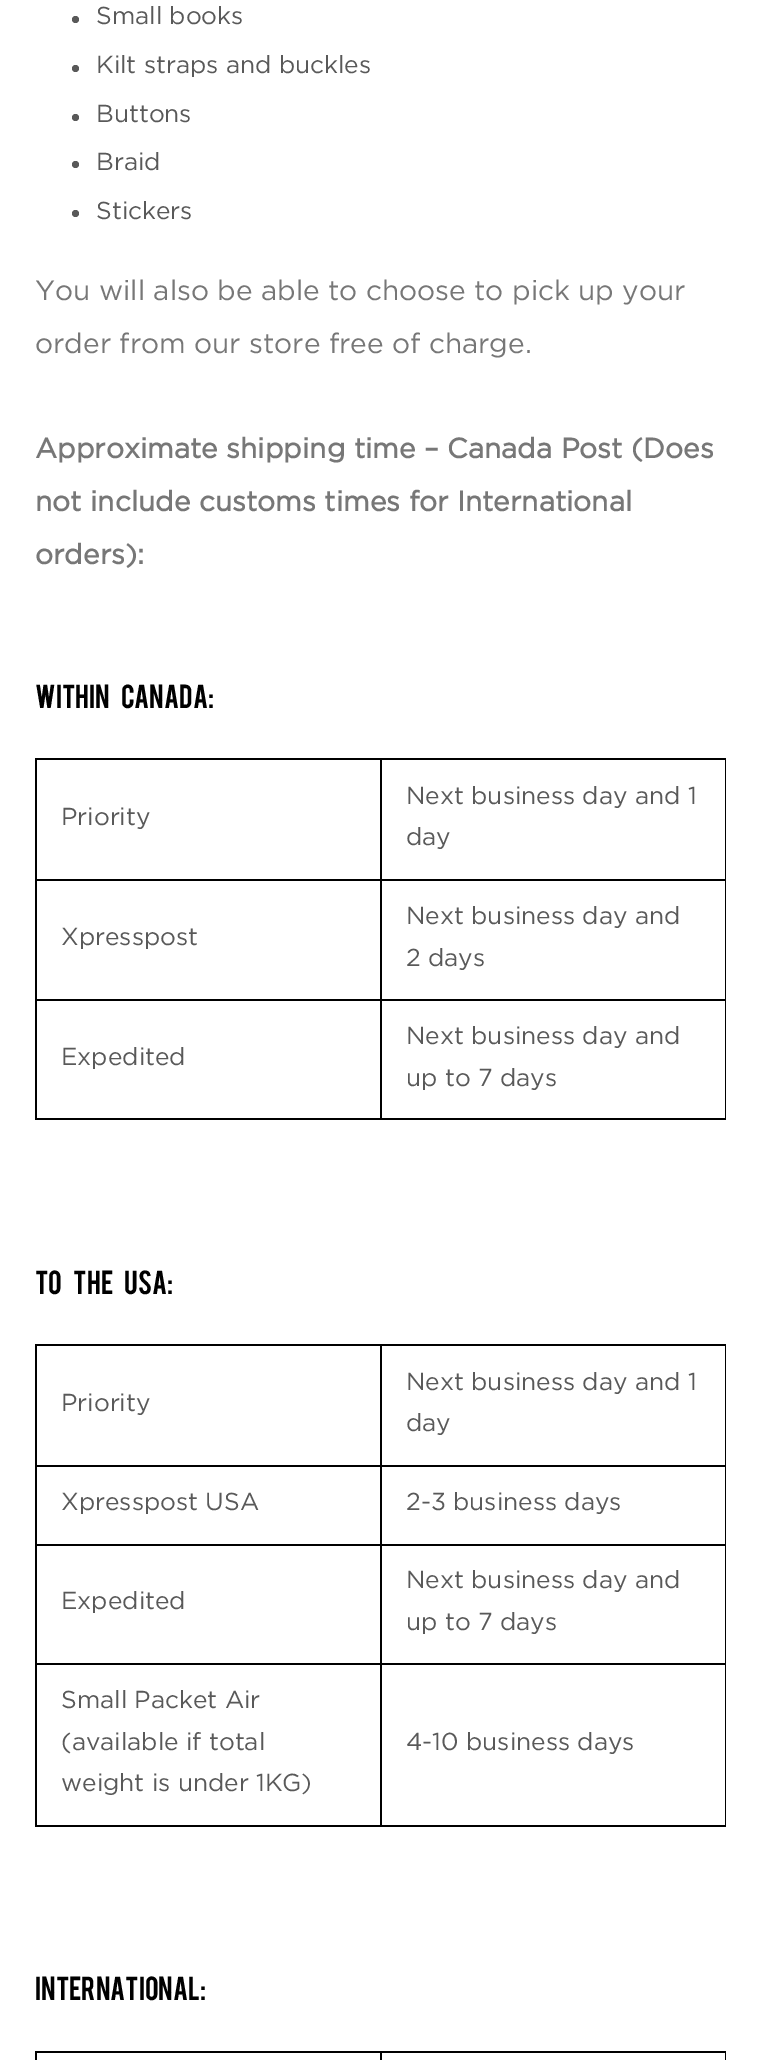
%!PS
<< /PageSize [760 2060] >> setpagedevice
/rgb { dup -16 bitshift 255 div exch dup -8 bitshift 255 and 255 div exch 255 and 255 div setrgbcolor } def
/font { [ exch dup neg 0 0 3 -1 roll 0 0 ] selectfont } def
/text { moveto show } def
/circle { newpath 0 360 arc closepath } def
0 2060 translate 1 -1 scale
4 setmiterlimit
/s1 { /Gotham-Regular 24.5 font 16#595959 rgb } def
/s2 { /Gotham-Regular 28 font 16#777777 rgb } def
/s3 { /Gotham-Bold 28 font 16#777777 rgb } def
/s4 { /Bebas-Regular 26.25 font 16#000000 rgb } def
16#FFFFFF rgb
0 0 760 2060 rectfill
16#595959 rgb
75.5 19.5 3.5 circle fill
s1
(Small books) 96 24 text
75.5 68.5 3.5 circle fill
(Kilt straps and buckles) 96 73 text
75.5 117.5 3.5 circle fill
(Buttons) 96 122 text
75.5 164.5 3.5 circle fill
(Braid) 96 170 text
75.5 213.5 3.5 circle fill
(Stickers) 96 219 text
s2
(You will also be able to choose to pick up your) 35 300 text
(order from our store free of charge.) 35 353 text
s3
(Approximate shipping time – Canada Post \(Does) 35 458 text
(not include customs times for International) 35 511 text
(orders\):) 35 564 text
/Bebas-Regular 26.25 font
16#000000 rgb
35 708 moveto 9 0 32 (Within Canada:) widthshow
380 758 346 2 rectfill
380 879 346 2 rectfill
380 999 346 2 rectfill
725 999 1 121 rectfill
380 1118 346 2 rectfill
380 999 2 121 rectfill
35 999 347 2 rectfill
380 879 2 122 rectfill
35 879 347 2 rectfill
380 758 2 122 rectfill
35 758 347 2 rectfill
35 1118 347 2 rectfill
35 999 2 121 rectfill
35 879 2 122 rectfill
35 758 2 122 rectfill
s1
(Priority) 61 825 text
16#000000 rgb
725 879 1 122 rectfill
725 758 1 122 rectfill
s1
(Next business day and 1) 406 804 text
(day) 406 845 text
(Xpresspost) 61 945 text
(Next business day and) 406 924 text
(2 days) 406 966 text
(Expedited) 61 1065 text
(Next business day and) 406 1044 text
(up to 7 days) 406 1086 text
/Bebas-Regular 26.25 font
16#000000 rgb
35 1294 moveto 9 0 32 (To the USA:) widthshow
380 1344 346 2 rectfill
380 1465 346 2 rectfill
380 1544 346 2 rectfill
380 1663 346 2 rectfill
725 1663 1 164 rectfill
380 1825 346 2 rectfill
380 1663 2 164 rectfill
35 1663 347 2 rectfill
380 1544 2 120 rectfill
35 1544 347 2 rectfill
380 1465 2 80 rectfill
35 1465 347 2 rectfill
380 1344 2 123 rectfill
35 1344 347 2 rectfill
35 1825 347 2 rectfill
35 1663 2 164 rectfill
35 1544 2 120 rectfill
35 1465 2 80 rectfill
35 1344 2 123 rectfill
s1
(Priority) 61 1411 text
16#000000 rgb
725 1544 1 120 rectfill
725 1465 1 80 rectfill
725 1344 1 123 rectfill
s1
(Next business day and 1) 406 1390 text
(day) 406 1431 text
(Xpresspost USA) 61 1510 text
(2-3 business days) 406 1510 text
(Expedited) 61 1609 text
(Next business day and) 406 1588 text
(up to 7 days) 406 1630 text
(Small Packet Air) 61 1708 text
(\(available if total) 61 1750 text
(weight is under 1KG\)) 61 1791 text
(4-10 business days) 406 1750 text
s4
(International:) 35 2000 text
380 2051 346 2 rectfill
380 2051 2 9 rectfill
35 2051 347 2 rectfill
35 2051 2 9 rectfill
725 2051 1 9 rectfill
showpage
